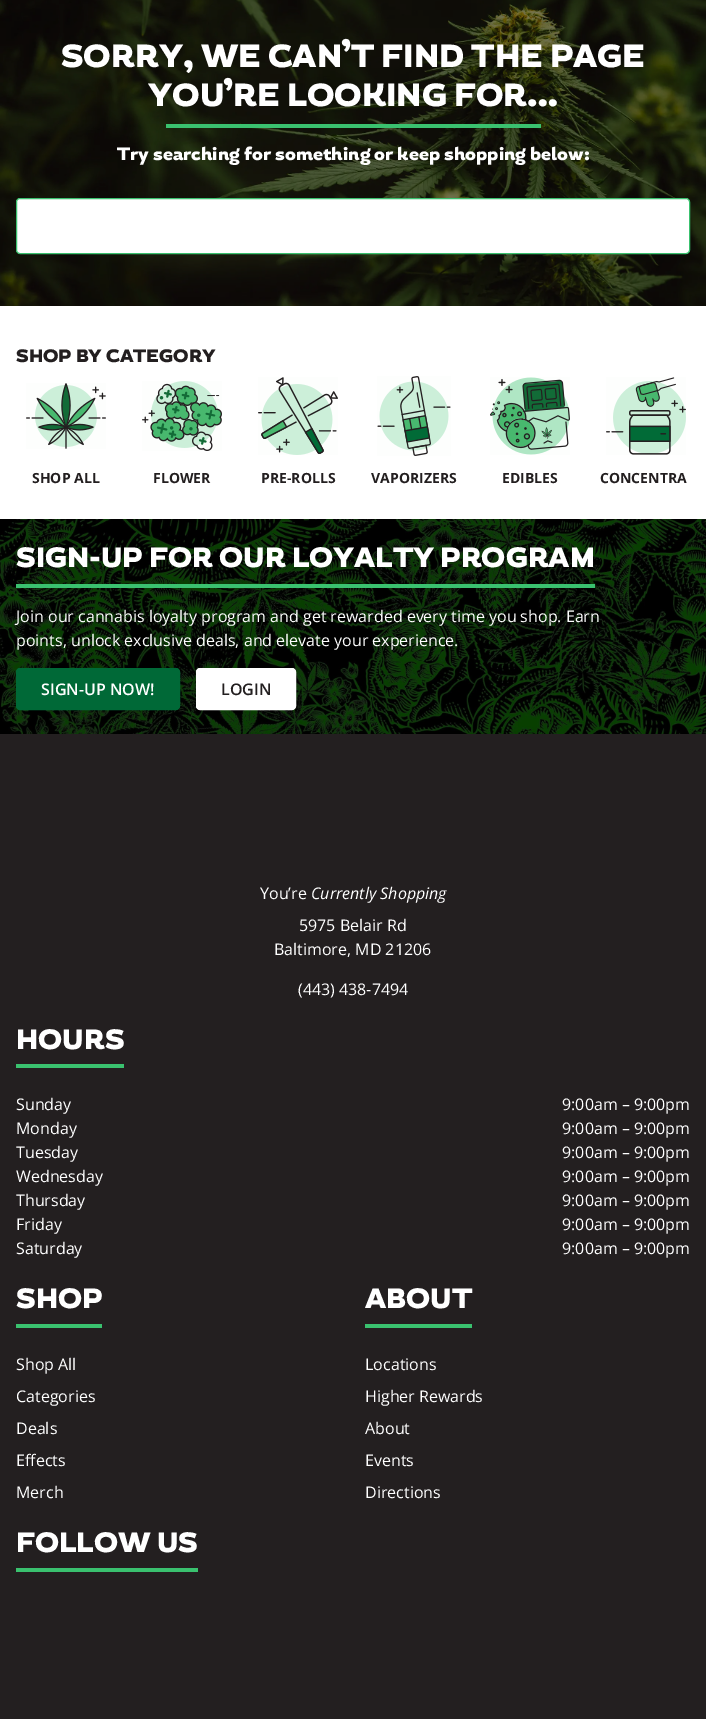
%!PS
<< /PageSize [706 1719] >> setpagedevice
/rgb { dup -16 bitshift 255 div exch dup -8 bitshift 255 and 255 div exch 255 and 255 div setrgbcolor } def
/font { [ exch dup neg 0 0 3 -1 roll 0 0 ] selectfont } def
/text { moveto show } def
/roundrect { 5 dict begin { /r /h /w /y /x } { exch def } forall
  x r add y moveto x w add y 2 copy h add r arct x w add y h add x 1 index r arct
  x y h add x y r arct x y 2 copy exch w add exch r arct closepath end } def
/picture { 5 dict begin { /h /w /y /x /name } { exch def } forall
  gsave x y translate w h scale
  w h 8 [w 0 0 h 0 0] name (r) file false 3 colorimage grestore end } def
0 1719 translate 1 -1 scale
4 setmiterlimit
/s1 { /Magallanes-Black 32 font 16#FFFFFF rgb } def
/s2 { /Magallanes-Black 18 font 16#FFFFFF rgb } def
/s3 { /Magallanes-Black 18 font 16#231F20 rgb } def
/s4 { /OpenSans-Bold 14 font 16#231F20 rgb } def
/s5 { /Magallanes-Black 28 font 16#FFFFFF rgb } def
/s6 { /OpenSans-Regular 16 font 16#FFFFFF rgb } def
/s7 { /OpenSans-SemiBold 16 font 16#FFFFFF rgb } def
/s8 { /OpenSans-SemiBold 16 font 16#231F20 rgb } def
/s9 { /OpenSans-Italic 16 font 16#FFFFFF rgb } def
16#FFFFFF rgb
0 0 706 1719 rectfill
(pic1.raw) 0 0 706 306 picture
s1
(SORRY, WE CAN’T FIND THE PAGE) 61 67 text
(YOU’RE LOOKING FOR…) 148 106 text
16#3AC16F rgb
166 124 375 4 rectfill
s2
(Try searching for something or keep shopping below:) 117 160 text
16.5 198.5 673 55 3.5 roundrect gsave fill grestore
16#3AC16F rgb
stroke
s3
(SHOP BY CATEGORY) 16 362 text
(pic2.raw) 26 383 80 66 picture
s4
(SHOP ALL) 32 483 text
(pic3.raw) 142 381 80 70 picture
(FLOWER) 153 483 text
(pic4.raw) 258 377 80 78 picture
(PRE-ROLLS) 261 483 text
(pic5.raw) 377 376 74 80 picture
(VAPORIZERS) 371 483 text
(pic6.raw) 490 377 80 78 picture
(EDIBLES) 502 483 text
(pic7.raw) 606 377 80 78 picture
(CONCENTRA) 600 483 text
(pic8.raw) 0 519 706 215 picture
16#3AC16F rgb
16 584 579 4 rectfill
s5
(SIGN-UP FOR OUR LOYALTY PROGRAM) 16 567 text
s6
(Join our cannabis loyalty program and get rewarded every time you shop. Earn) 16 622 text
(points, unlock exclusive deals, and elevate your experience.) 16 646 text
16#006937 rgb
16.5 668.5 163 41 3.5 roundrect gsave fill grestore
stroke
s7
(SIGN-UP NOW!) 41 695 text
196.5 668.5 99 41 3.5 roundrect gsave fill grestore
stroke
s8
(LOGIN) 221 695 text
0 734 706 985 rectfill
s6
(You’re) 260 899 text
s9
(Currently Shopping) 311 899 text
s6
(5975 Belair Rd) 299 931 text
(Baltimore, MD 21206) 274 955 text
(\(443\) 438-7494) 298 995 text
16#3AC16F rgb
16 1064 108 4 rectfill
s5
(HOURS) 16 1049 text
s6
(Sunday) 16 1110 text
(9:00am – 9:00pm) 562 1110 text
(Monday) 16 1134 text
(9:00am – 9:00pm) 562 1134 text
(Tuesday) 16 1158 text
(9:00am – 9:00pm) 562 1158 text
(Wednesday) 16 1182 text
(9:00am – 9:00pm) 562 1182 text
(Thursday) 16 1206 text
(9:00am – 9:00pm) 562 1206 text
(Friday) 16 1230 text
(9:00am – 9:00pm) 562 1230 text
(Saturday) 16 1254 text
(9:00am – 9:00pm) 562 1254 text
16#3AC16F rgb
16 1324 86 4 rectfill
s5
(SHOP) 16 1308 text
s6
(Shop All) 16 1370 text
(Categories) 16 1402 text
(Deals) 16 1434 text
(Effects) 16 1466 text
(Merch) 16 1498 text
16#3AC16F rgb
365 1324 107 4 rectfill
s5
(ABOUT) 365 1308 text
s6
(Locations) 365 1370 text
(Higher Rewards) 365 1402 text
(About) 365 1434 text
(Events) 365 1466 text
(Directions) 365 1498 text
16#3AC16F rgb
16 1568 182 4 rectfill
s5
(FOLLOW US) 16 1552 text
showpage
